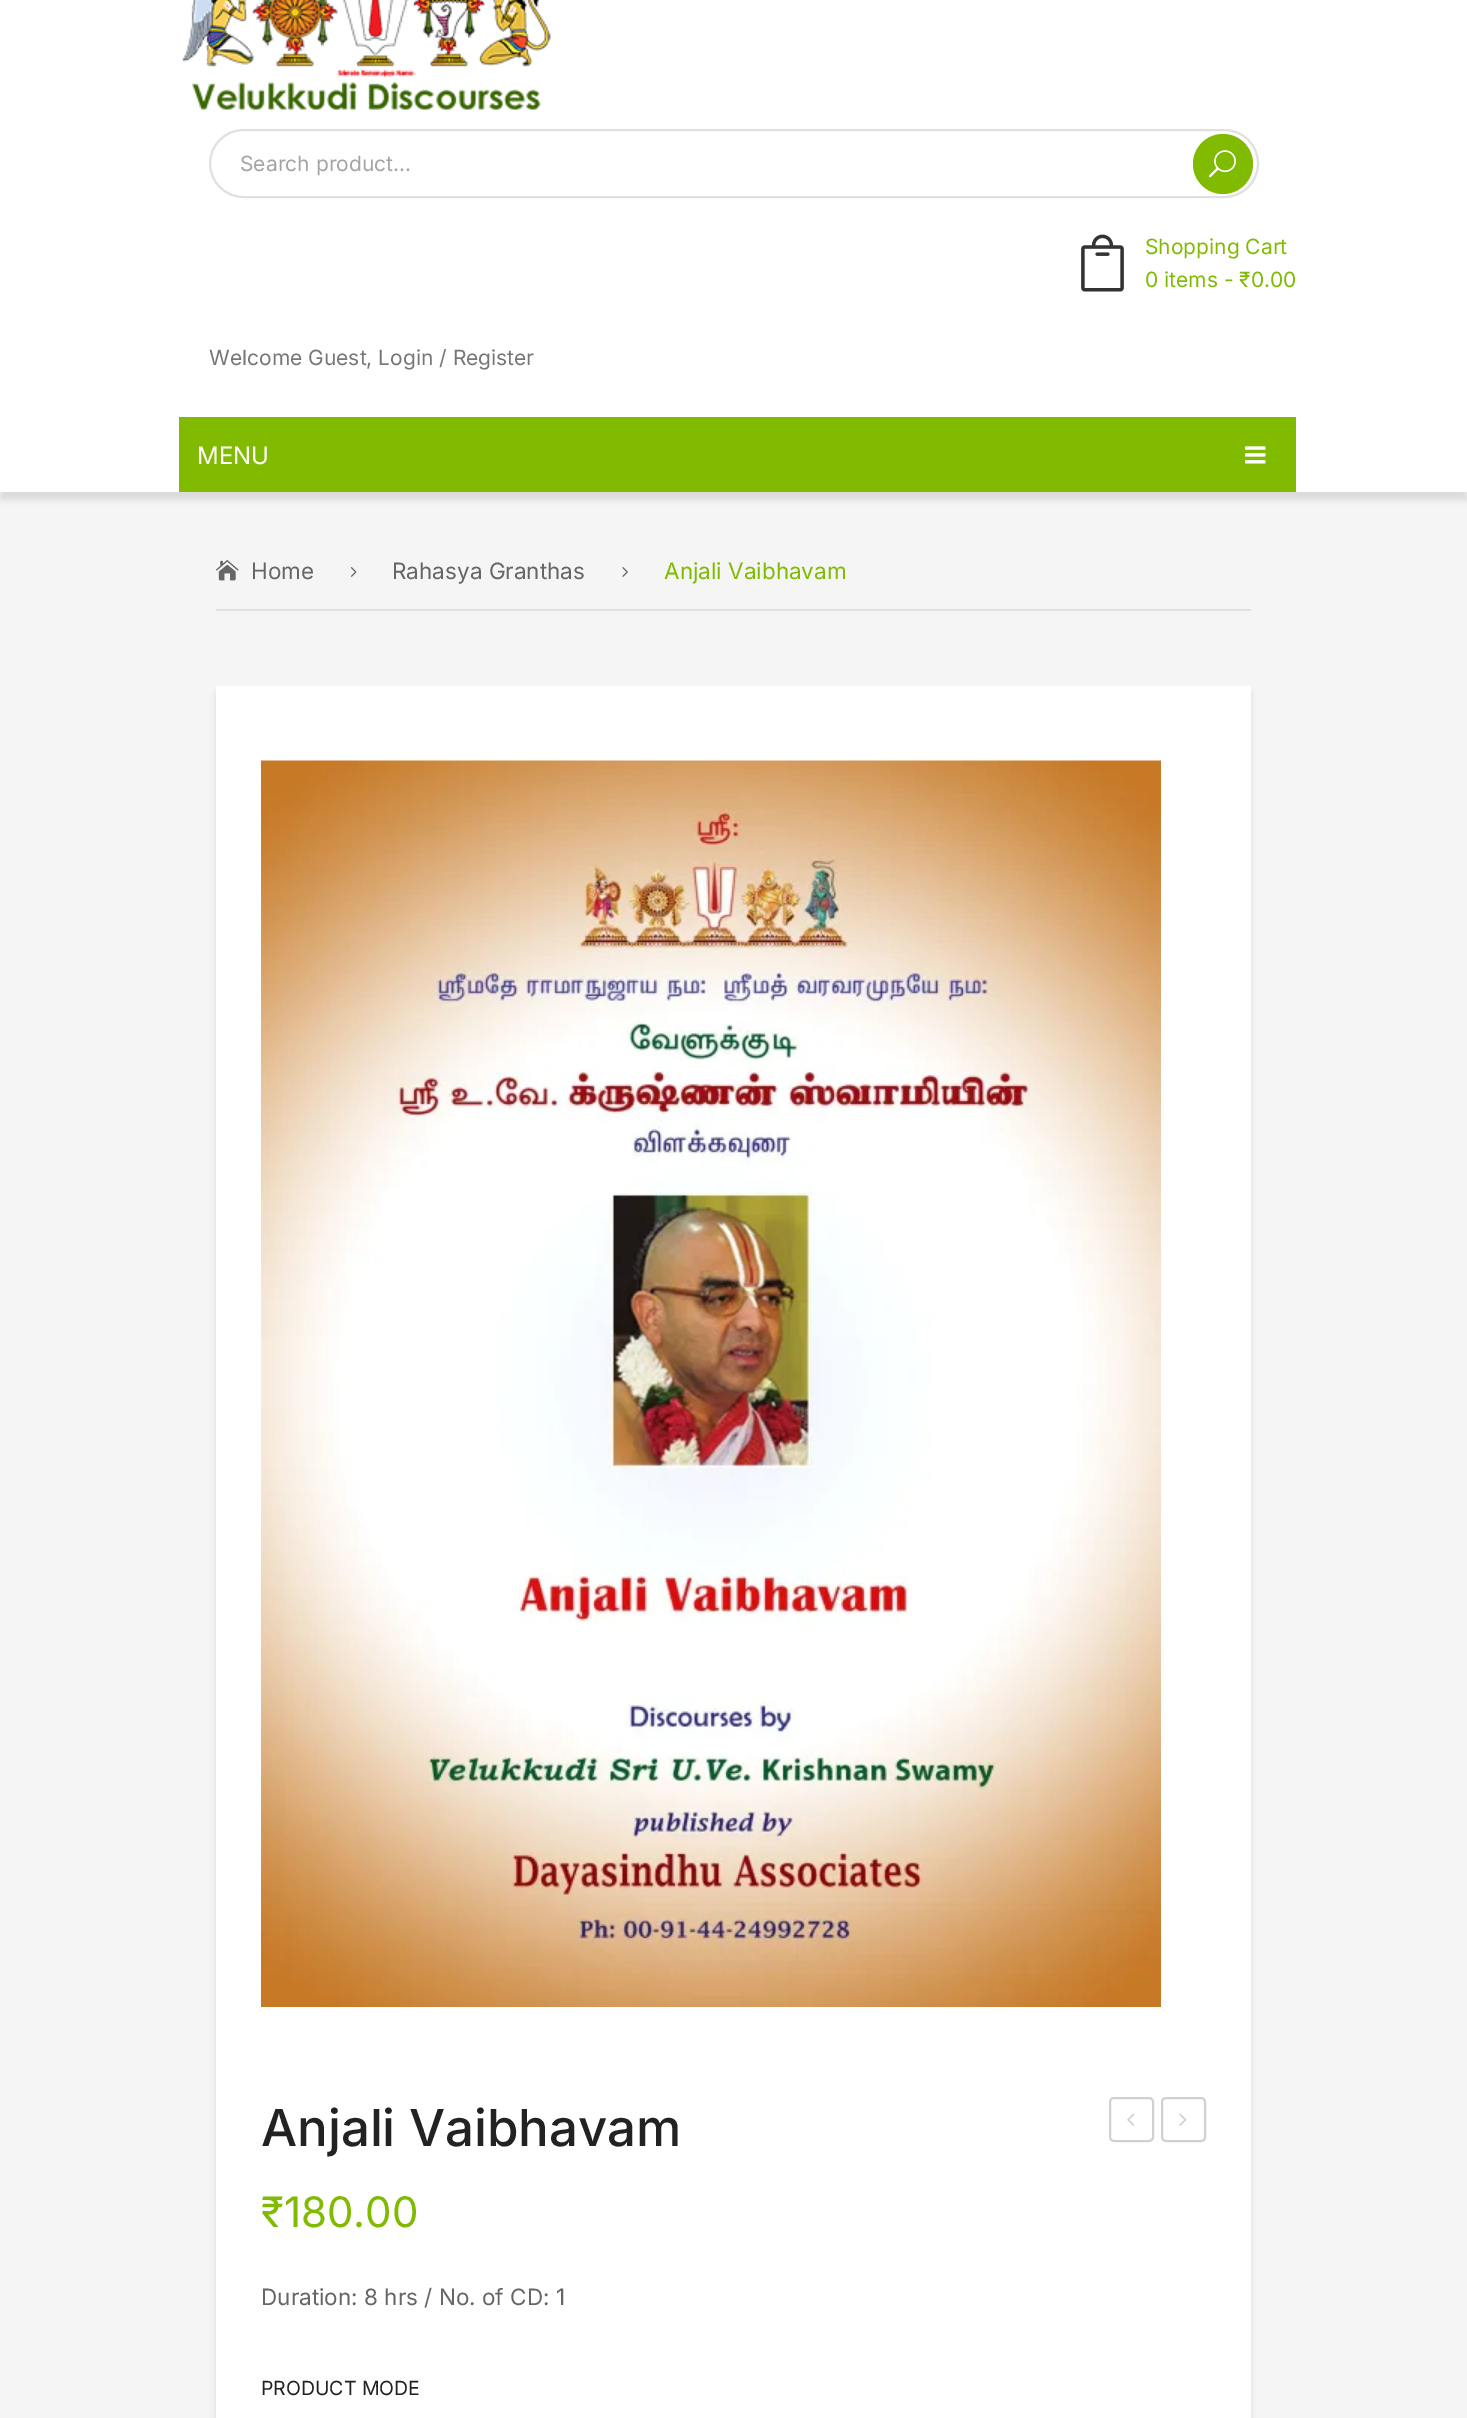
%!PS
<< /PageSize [1467 2418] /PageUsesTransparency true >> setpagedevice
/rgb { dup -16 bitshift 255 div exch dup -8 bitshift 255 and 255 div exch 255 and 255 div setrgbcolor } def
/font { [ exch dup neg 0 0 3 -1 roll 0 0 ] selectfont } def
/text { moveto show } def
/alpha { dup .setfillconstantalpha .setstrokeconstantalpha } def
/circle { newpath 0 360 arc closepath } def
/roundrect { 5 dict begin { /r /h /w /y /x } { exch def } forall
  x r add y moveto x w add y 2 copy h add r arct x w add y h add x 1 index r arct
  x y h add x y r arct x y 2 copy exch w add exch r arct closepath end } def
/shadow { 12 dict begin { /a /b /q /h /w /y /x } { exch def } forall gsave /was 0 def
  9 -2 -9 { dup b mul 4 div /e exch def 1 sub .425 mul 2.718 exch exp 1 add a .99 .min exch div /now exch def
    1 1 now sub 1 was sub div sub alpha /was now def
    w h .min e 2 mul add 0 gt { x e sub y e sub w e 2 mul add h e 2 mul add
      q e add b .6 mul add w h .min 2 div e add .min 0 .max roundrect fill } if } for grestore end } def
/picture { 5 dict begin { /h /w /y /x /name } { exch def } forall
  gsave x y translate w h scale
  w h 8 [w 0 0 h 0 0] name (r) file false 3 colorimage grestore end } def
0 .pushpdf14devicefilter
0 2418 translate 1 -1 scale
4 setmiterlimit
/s1 { /Inter-Regular 21 font 16#A4A4A4 rgb } def
/s2 { /Inter-Regular 21 font 16#80BB01 rgb } def
/s3 { /Inter-Regular 21 font 16#777777 rgb } def
/s4 { /Inter-Regular 24 font 16#FFFFFF rgb } def
/s5 { /Inter-Regular 22.5 font 16#666666 rgb } def
/s6 { /Inter-Regular 22.5 font 16#80BB01 rgb } def
/s7 { /Inter-Medium 51 font 16#222222 rgb } def
/s8 { /Inter-Regular 42 font 16#80BB01 rgb } def
/s9 { /Inter-Regular 19.5 font 16#222222 rgb } def
16#F5F5F5 rgb
0 0 1467 2418 rectfill
16#000000 rgb
0 8 1467 492 0 3 0.1 shadow
16#FFFFFF rgb
0 0 1467 492 rectfill
(pic1.raw) 182 0 369 110 picture
16#E0E0E0 rgb
2 setlinewidth
210 130 1048 67 33.5 roundrect stroke
s1
(Search product...) 240 171 text
16#80BB01 rgb
1223 164 30 circle fill
(pic2.raw) 1208 150 28 28 picture
(pic3.raw) 1081 234 43 58 picture
(Shopping Cart) 1145 254 text
(0 items - ₹0.00) 1145 287 text
s3
(Welcome Guest, Login / Register) 209 365 text
16#80BB01 rgb
179 417 1117 75 rectfill
s4
(MENU) 197 464 text
(pic4.raw) 1245 446 21 18 picture
16#E0E0E0 rgb
216 609 1035 2 rectfill
(pic5.raw) 216 560 23 21 picture
s5
(Home) 251 579 text
(pic6.raw) 350 567 7 10 picture
(Rahasya Granthas) 392 579 text
(pic7.raw) 622 567 6 10 picture
s6
(Anjali Vaibhavam) 664 579 text
16#000000 rgb
216 693 1035 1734 0 3 0.1 shadow
16#FFFFFF rgb
216 686 1035 1732 rectfill
(pic8.raw) 261 760 900 1247 picture
s7
(Anjali Vaibhavam) 261 2146 text
16#D1D1D1 rgb
1110 2098 43 43 4 roundrect stroke
(pic9.raw) 1127 2113 8 13 picture
1162 2098 43 43 4 roundrect stroke
(pic10.raw) 1179 2113 8 13 picture
s8
(₹180.00) 261 2227 text
s5
(Duration: 8 hrs / No. of CD: 1) 261 2305 text
s9
(PRODUCT MODE) 261 2395 text
.poppdf14devicefilter showpage
